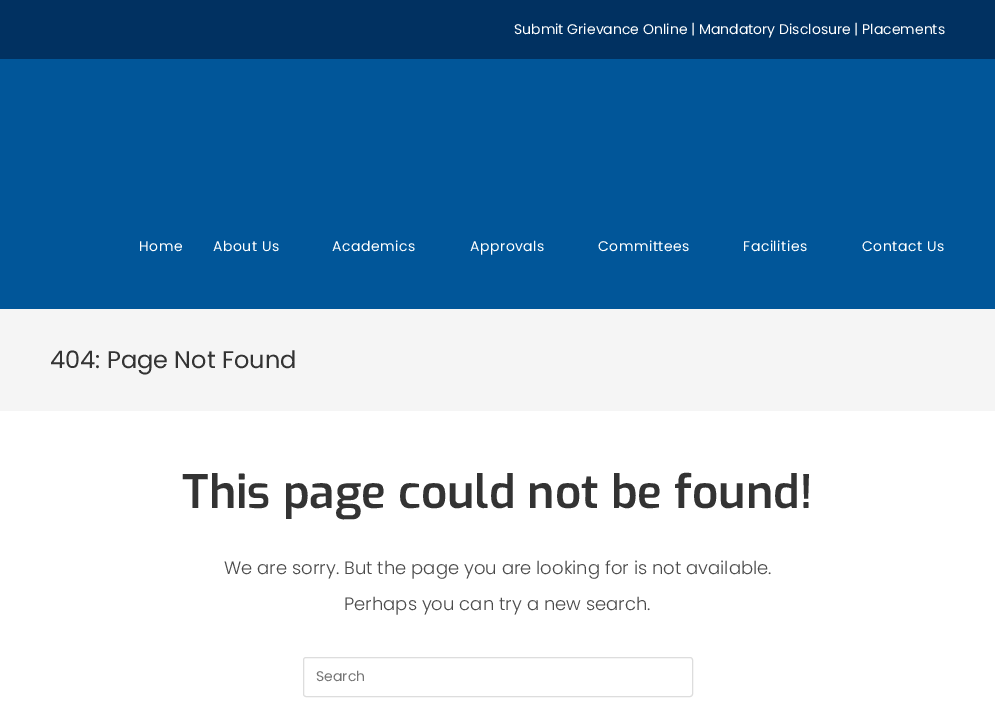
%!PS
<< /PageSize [995 703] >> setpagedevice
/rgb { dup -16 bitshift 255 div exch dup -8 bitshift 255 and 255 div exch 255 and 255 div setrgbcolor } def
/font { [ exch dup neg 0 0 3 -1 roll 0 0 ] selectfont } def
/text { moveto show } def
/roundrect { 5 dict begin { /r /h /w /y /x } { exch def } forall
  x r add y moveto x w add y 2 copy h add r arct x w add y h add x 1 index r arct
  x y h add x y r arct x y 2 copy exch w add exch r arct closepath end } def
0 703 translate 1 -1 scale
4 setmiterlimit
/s1 { /Poppins-Regular 14 font 16#FFFFFF rgb } def
/s2 { /Poppins-Regular 24 font 16#333333 rgb } def
/s3 { /Exo-SemiBold 46 font 16#333333 rgb } def
/s4 { /Poppins-Light 18 font 16#4A4A4A rgb } def
/s5 { /Poppins-Regular 14 font 16#757575 rgb } def
16#FFFFFF rgb
0 0 995 703 rectfill
16#013161 rgb
0 0 995 59 rectfill
s1
(Submit Grievance Online | Mandatory Disclosure | Placements) 514 34 text
16#015699 rgb
0 59 995 250 rectfill
16#FFFFFF rgb
139 251 moveto 0.5 0 (Home) ashow
213 251 moveto 0.5 0 (About Us) ashow
332 251 moveto 0.5 0 (Academics) ashow
470 251 moveto 0.5 0 (Approvals) ashow
598 251 moveto 0.5 0 (Committees) ashow
743 251 moveto 0.5 0 (Facilities) ashow
862 251 moveto 0.5 0 (Contact Us) ashow
16#F5F5F5 rgb
0 309 995 102 rectfill
s2
(404: Page Not Found) 50 368 text
s3
(This page could not be found!) 182 508 text
s4
(We are sorry. But the page you are looking for is not available.) 224 574 text
(Perhaps you can try a new search.) 344 610 text
16#DDDDDD rgb
303.5 657.5 389 39 2.5 roundrect stroke
s5
(Search) 316 681 text
showpage
